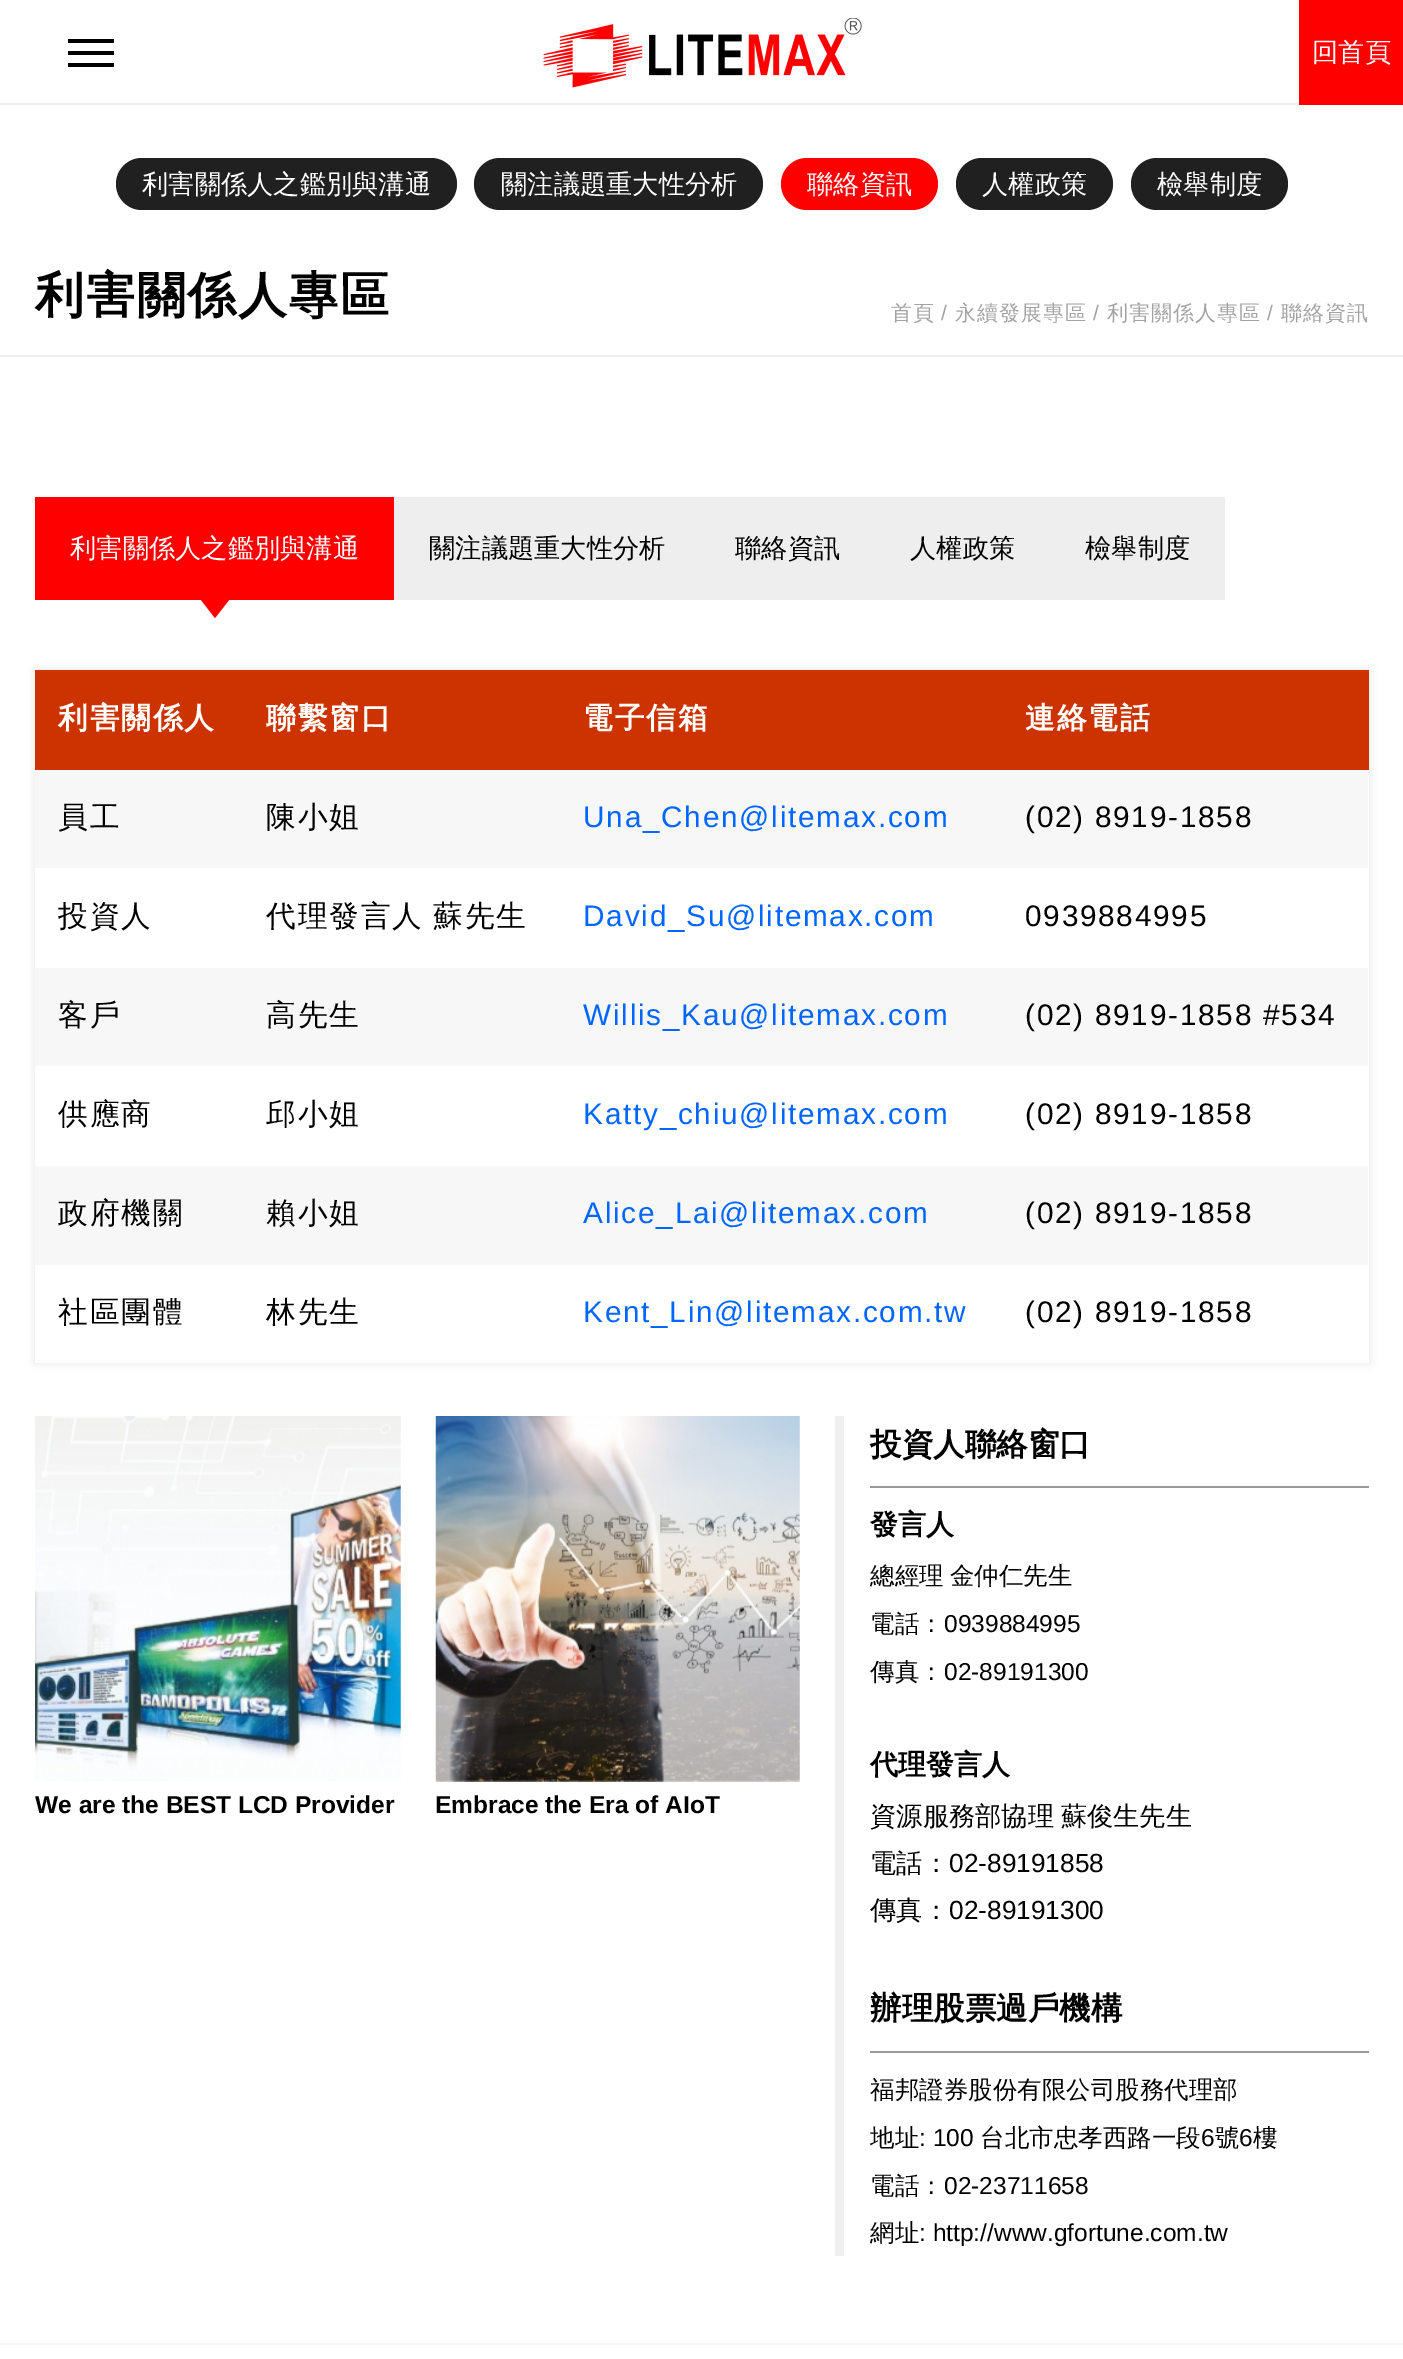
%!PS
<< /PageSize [1403 2359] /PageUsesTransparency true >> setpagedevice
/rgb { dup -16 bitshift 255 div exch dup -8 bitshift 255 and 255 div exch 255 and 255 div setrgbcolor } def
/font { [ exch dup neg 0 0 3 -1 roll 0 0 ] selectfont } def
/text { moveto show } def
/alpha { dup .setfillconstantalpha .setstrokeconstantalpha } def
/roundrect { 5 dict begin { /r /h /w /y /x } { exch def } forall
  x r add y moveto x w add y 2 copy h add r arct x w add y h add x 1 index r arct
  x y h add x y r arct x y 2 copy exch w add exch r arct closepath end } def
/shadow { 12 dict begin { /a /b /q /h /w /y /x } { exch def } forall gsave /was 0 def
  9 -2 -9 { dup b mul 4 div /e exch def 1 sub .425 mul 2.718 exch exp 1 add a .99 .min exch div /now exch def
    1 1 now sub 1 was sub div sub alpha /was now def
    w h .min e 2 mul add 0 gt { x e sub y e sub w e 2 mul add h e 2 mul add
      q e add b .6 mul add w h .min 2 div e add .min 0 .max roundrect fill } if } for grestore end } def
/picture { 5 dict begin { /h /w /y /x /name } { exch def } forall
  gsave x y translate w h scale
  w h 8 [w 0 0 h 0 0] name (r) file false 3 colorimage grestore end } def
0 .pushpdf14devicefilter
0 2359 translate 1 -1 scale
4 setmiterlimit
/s1 { /WenQuanYiZenHei-Medium 26.25 font 16#FFFFFF rgb } def
/s2 { /WenQuanYiZenHei-Medium 26.25 font 16#000000 rgb } def
/s3 { /LiberationSans-Bold 24.5 font 16#000000 rgb } def
/s4 { /WenQuanYiZenHei-Bold 31.5 font 16#000000 rgb } def
/s5 { /WenQuanYiZenHei-Bold 28 font 16#000000 rgb } def
/s6 { /WenQuanYiZenHei-Medium 24.5 font 16#000000 rgb } def
/s7 { /LiberationSans-Regular 24.5 font 16#000000 rgb } def
/s8 { /LiberationSans-Regular 26.25 font 16#000000 rgb } def
16#FFFFFF rgb
0 0 1403 2359 rectfill
16#F0F0F0 rgb
0 103 1299 2 rectfill
16#000000 rgb
68 51 46 4 rectfill
68 39 46 4 rectfill
68 63 46 4 rectfill
(pic1.raw) 543 18 319 70 picture
16#FF0000 rgb
1299 0 104 105 rectfill
s1
(回首頁) 1312 61 text
16#F0F0F0 rgb
0 355 1403 2 rectfill
16#202020 rgb
116 158 341 52 26 roundrect fill
s1
(利害關係人之鑑別與溝通) 142 193 text
16#202020 rgb
474 158 289 52 26 roundrect fill
s1
(關注議題重大性分析) 501 193 text
16#FF0000 rgb
781 158 157 52 26 roundrect fill
s1
(聯絡資訊) 807 193 text
16#202020 rgb
956 158 157 52 26 roundrect fill
s1
(人權政策) 982 193 text
16#202020 rgb
1131 158 157 52 26 roundrect fill
s1
(檢舉制度) 1157 193 text
/WenQuanYiZenHei-Bold 49 font
16#000000 rgb
35 312 moveto 1.75 0 (利害關係人專區) ashow
/WenQuanYiZenHei-Medium 21 font
16#A4A3A3 rgb
891 320 moveto 1 0 (首頁) ashow
/LiberationSans-Regular 21 font
941 320 moveto 1 0 (/) ashow
/WenQuanYiZenHei-Medium 21 font
955 320 moveto 1 0 (永續發展專區) ashow
/LiberationSans-Regular 21 font
1093 320 moveto 1 0 (/) ashow
/WenQuanYiZenHei-Medium 21 font
1107 320 moveto 1 0 (利害關係人專區) ashow
/LiberationSans-Regular 21 font
1267 320 moveto 1 0 (/) ashow
/WenQuanYiZenHei-Medium 21 font
1281 320 moveto 1 0 (聯絡資訊) ashow
16#FF0000 rgb
35 497 359 103 rectfill
s1
(利害關係人之鑑別與溝通) 70 557 text
16#FF0000 rgb
201 600 moveto 229 600 lineto 215 618 lineto closepath fill
16#EEEEEE rgb
394 497 831 103 rectfill
s2
(關注議題重大性分析) 429 557 text
(聯絡資訊) 735 557 text
(人權政策) 910 557 text
(檢舉制度) 1085 557 text
gsave
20 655 moveto 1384 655 lineto 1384 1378 lineto 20 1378 lineto closepath 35 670 moveto 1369 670 lineto 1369 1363 lineto 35 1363 lineto closepath eoclip newpath
16#000010 rgb
35 670 1334 693 0 4.5 0.1 shadow
grestore
16#CC3300 rgb
35 670 1334 100 rectfill
/WenQuanYiZenHei-Bold 29.75 font
16#FFFFFF rgb
58 728 moveto 1.75 0 (利害關係人) ashow
266 728 moveto 1.75 0 (聯繫窗口) ashow
583 728 moveto 1.75 0 (電子信箱) ashow
1025 728 moveto 1.75 0 (連絡電話) ashow
16#F7F7F7 rgb
35 770 1333 98 rectfill
/WenQuanYiZenHei-Medium 29.75 font
16#000000 rgb
58 827 moveto 1.75 0 (員工) ashow
266 827 moveto 1.75 0 (陳小姐) ashow
/LiberationSans-Regular 29.75 font
16#0066FF rgb
583 827 moveto 1.75 0 (Una_Chen@litemax.com) ashow
16#000000 rgb
1025 827 moveto 1.75 0 (\(02\) 8919-1858) ashow
/WenQuanYiZenHei-Medium 29.75 font
58 926 moveto 1.75 0 (投資人) ashow
266 926 moveto -1 0 32 1.75 0 (代理發言人 蘇先生) awidthshow
/LiberationSans-Regular 29.75 font
16#0066FF rgb
583 926 moveto 1.75 0 (David_Su@litemax.com) ashow
16#FFFFFF rgb
1368 868 1 100 rectfill
16#000000 rgb
1025 926 moveto 1.75 0 (0939884995) ashow
16#F7F7F7 rgb
35 968 1333 98 rectfill
/WenQuanYiZenHei-Medium 29.75 font
16#000000 rgb
58 1025 moveto 1.75 0 (客戶) ashow
266 1025 moveto 1.75 0 (高先生) ashow
/LiberationSans-Regular 29.75 font
16#0066FF rgb
583 1025 moveto 1.75 0 (Willis_Kau@litemax.com) ashow
16#000000 rgb
1025 1025 moveto 1.75 0 (\(02\) 8919-1858 #534) ashow
/WenQuanYiZenHei-Medium 29.75 font
58 1124 moveto 1.75 0 (供應商) ashow
266 1124 moveto 1.75 0 (邱小姐) ashow
/LiberationSans-Regular 29.75 font
16#0066FF rgb
583 1124 moveto 1.75 0 (Katty_chiu@litemax.com) ashow
16#FFFFFF rgb
1368 1066 1 100 rectfill
16#000000 rgb
1025 1124 moveto 1.75 0 (\(02\) 8919-1858) ashow
16#F7F7F7 rgb
35 1166 1333 99 rectfill
/WenQuanYiZenHei-Medium 29.75 font
16#000000 rgb
58 1223 moveto 1.75 0 (政府機關) ashow
266 1223 moveto 1.75 0 (賴小姐) ashow
/LiberationSans-Regular 29.75 font
16#0066FF rgb
583 1223 moveto 1.75 0 (Alice_Lai@litemax.com) ashow
16#000000 rgb
1025 1223 moveto 1.75 0 (\(02\) 8919-1858) ashow
/WenQuanYiZenHei-Medium 29.75 font
58 1322 moveto 1.75 0 (社區團體) ashow
266 1322 moveto 1.75 0 (林先生) ashow
/LiberationSans-Regular 29.75 font
16#0066FF rgb
583 1322 moveto 1.75 0 (Kent_Lin@litemax.com.tw) ashow
16#FFFFFF rgb
1368 1265 1 98 rectfill
16#000000 rgb
1025 1322 moveto 1.75 0 (\(02\) 8919-1858) ashow
(pic2.raw) 35 1416 366 365 picture
s3
(We are the BEST LCD Provider) 35 1813 text
(pic3.raw) 435 1416 365 366 picture
(Embrace the Era of AIoT) 435 1813 text
16#F0F0F0 rgb
835 1416 9 840 rectfill
s4
(投資人聯絡窗口) 870 1455 text
16#9A9A9A rgb
870 1486 499 2 rectfill
s5
(發言人) 870 1534 text
/WenQuanYiZenHei-Medium 24.5 font
870 1584 moveto -1 0 32 (總經理 金仲仁先生) widthshow
(電話：) 870 1632 text
s7
(0939884995) 944 1632 text
s6
(傳真：) 870 1680 text
s7
(02-89191300) 944 1680 text
s5
(代理發言人) 870 1774 text
/WenQuanYiZenHei-Medium 26.25 font
870 1825 moveto -1 0 32 (資源服務部協理 蘇俊生先生) widthshow
(電話：) 870 1872 text
s8
(02-89191858) 949 1872 text
s2
(傳真：) 870 1919 text
s8
(02-89191300) 949 1919 text
s4
(辦理股票過戶機構) 870 2019 text
16#9A9A9A rgb
870 2051 499 2 rectfill
s6
(福邦證券股份有限公司股務代理部) 870 2098 text
(地址) 870 2146 text
s7
(: 100) 919 2146 text
s6
(台北市忠孝西路一段) 980 2146 text
s7
(6) 1201 2146 text
s6
(號) 1215 2146 text
s7
(6) 1239 2146 text
s6
(樓) 1253 2146 text
(電話：) 870 2194 text
s7
(02-23711658) 944 2194 text
s6
(網址) 870 2241 text
s7
(: http://www.gfortune.com.tw) 919 2241 text
16#F6F6F6 rgb
0 2343 1403 2 rectfill
.poppdf14devicefilter showpage
